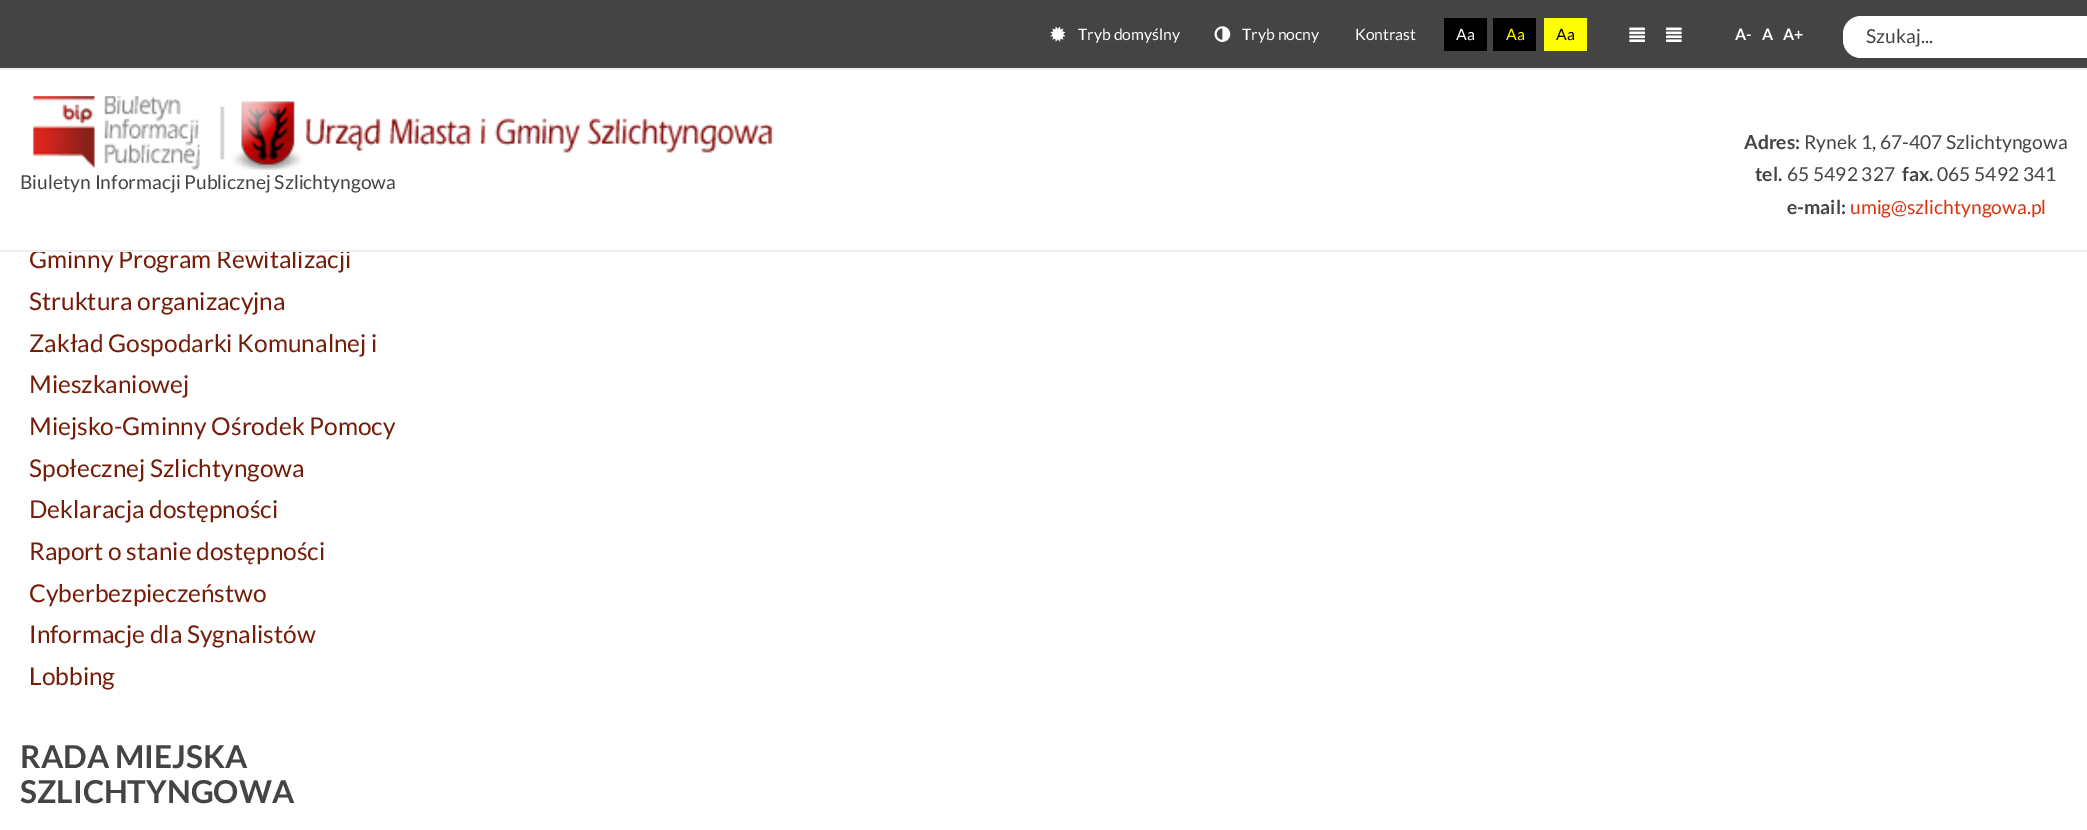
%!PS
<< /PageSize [2087 830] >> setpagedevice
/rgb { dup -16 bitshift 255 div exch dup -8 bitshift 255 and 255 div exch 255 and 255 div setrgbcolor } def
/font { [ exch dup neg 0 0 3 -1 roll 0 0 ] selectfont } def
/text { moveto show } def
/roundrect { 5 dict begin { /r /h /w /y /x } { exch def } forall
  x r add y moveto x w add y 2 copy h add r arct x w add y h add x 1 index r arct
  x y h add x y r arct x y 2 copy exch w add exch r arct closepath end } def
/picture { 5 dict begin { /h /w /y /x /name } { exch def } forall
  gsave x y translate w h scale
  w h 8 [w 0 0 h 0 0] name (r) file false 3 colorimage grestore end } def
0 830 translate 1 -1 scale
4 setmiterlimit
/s1 { /Lato-Regular 24.5 font 16#751D09 rgb } def
/s2 { /Lato-Regular 15.75 font 16#FFFFFF rgb } def
/s3 { /Lato-Regular 15.75 font 16#FFFF00 rgb } def
/s4 { /Lato-Regular 15.75 font 16#000000 rgb } def
/s5 { /Lato-Bold 15.75 font 16#FFFFFF rgb } def
/s6 { /Lato-Regular 19.25 font 16#444444 rgb } def
/s7 { /Lato-Bold 19.25 font 16#444444 rgb } def
/s8 { /Lato-Regular 19.25 font 16#D43410 rgb } def
/s9 { /Lato-Bold 31.5 font 16#444444 rgb } def
16#FFFFFF rgb
0 0 2087 830 rectfill
s1
(Gminny Program Rewitalizacji) 29 268 text
16#EEEEEE rgb
0 250 2087 2 rectfill
16#444444 rgb
0 0 2087 68 rectfill
16#EEEEEE rgb
0 68 2087 2 rectfill
(pic1.raw) 1050 26 16 16 picture
s2
(Tryb domyślny) 1078 40 text
(pic2.raw) 1214 26 17 16 picture
(Tryb nocny) 1242 40 text
(Kontrast) 1355 40 text
16#000000 rgb
1444 18 43 33 rectfill
s2
(Aa) 1456 40 text
16#000000 rgb
1493 18 43 33 rectfill
s3
(Aa) 1506 40 text
1544 18 43 33 rectfill
s4
(Aa) 1556 40 text
(pic3.raw) 1629 27 16 15 picture
(pic4.raw) 1666 27 16 15 picture
s5
(A-) 1735 40 text
(A) 1762 40 text
(A+) 1783 40 text
1843 16 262 42 18 roundrect fill
s6
(Szukaj...) 1866 43 text
16#FFFFFF rgb
293 249 3 1 rectfill
(pic5.raw) 32 96 741 74 picture
s6
(Biuletyn Informacji Publicznej Szlichtyngowa) 20 189 text
s7
(Adres:) 1744 149 text
s6
(Rynek 1, 67-407 Szlichtyngowa) 1804 149 text
s7
(tel.) 1755 181 text
s6
(65 5492 327) 1787 181 text
s7
(fax.) 1902 181 text
s6
(065 5492 341) 1937 181 text
s7
(e-mail:) 1787 214 text
s8
(umig@szlichtyngowa.pl) 1850 214 text
s1
(Struktura organizacyjna) 29 310 text
(Zakład Gospodarki Komunalnej i) 29 352 text
(Mieszkaniowej) 29 393 text
(Miejsko-Gminny Ośrodek Pomocy) 29 435 text
(Społecznej Szlichtyngowa) 29 477 text
(Deklaracja dostępności) 29 518 text
(Raport o stanie dostępności) 29 560 text
(Cyberbezpieczeństwo) 29 602 text
(Informacje dla Sygnalistów) 29 643 text
(Lobbing) 29 685 text
s9
(RADA MIEJSKA) 20 768 text
(SZLICHTYNGOWA) 20 803 text
showpage
